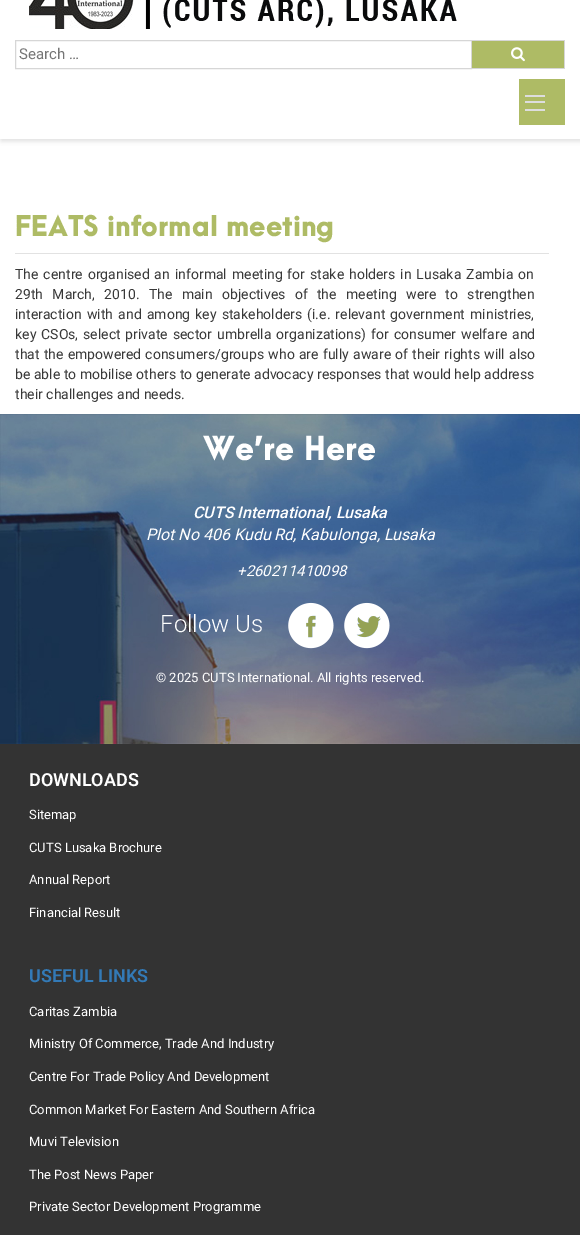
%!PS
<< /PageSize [580 1235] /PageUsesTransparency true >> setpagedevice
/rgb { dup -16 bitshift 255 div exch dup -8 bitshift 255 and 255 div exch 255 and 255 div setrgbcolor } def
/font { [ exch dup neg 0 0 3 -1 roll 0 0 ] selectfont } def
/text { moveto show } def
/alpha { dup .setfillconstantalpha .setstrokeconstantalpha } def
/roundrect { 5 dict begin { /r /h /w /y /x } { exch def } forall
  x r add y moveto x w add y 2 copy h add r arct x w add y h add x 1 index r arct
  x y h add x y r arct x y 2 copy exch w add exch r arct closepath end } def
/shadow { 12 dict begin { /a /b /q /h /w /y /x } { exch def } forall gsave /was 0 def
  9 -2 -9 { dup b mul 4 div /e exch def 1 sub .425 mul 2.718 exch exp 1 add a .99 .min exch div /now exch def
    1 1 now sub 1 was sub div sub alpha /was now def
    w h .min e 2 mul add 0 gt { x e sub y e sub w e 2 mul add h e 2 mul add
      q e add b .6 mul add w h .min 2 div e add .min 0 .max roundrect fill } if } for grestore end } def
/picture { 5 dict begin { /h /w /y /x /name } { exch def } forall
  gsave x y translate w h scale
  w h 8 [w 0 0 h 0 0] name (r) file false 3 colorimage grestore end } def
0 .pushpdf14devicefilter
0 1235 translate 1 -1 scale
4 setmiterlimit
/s1 { /Roboto-Regular 15 font 16#757575 rgb } def
/s2 { /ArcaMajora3-Black 26 font 16#AEBB65 rgb } def
/s3 { /Roboto-Regular 14 font 16#383838 rgb } def
/s4 { /ArcaMajora3-Black 30 font 16#FFFFFF rgb } def
/s5 { /Roboto-MediumItalic 16 font 16#FFFFFF rgb } def
/s6 { /Roboto-Italic 16 font 16#FFFFFF rgb } def
/s7 { /Roboto-Italic 15 font 16#FFFFFF rgb } def
/s8 { /Roboto-Light 24 font 16#FFFFFF rgb } def
/s9 { /Roboto-Regular 13 font 16#FFFFFF rgb } def
/s10 { /Roboto-SemiBold 18 font 16#FFFFFF rgb } def
/s11 { /Roboto-SemiBold 18 font 16#337AB7 rgb } def
16#FFFFFF rgb
0 0 580 1235 rectfill
gsave
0 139 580 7 rectclip
16#DEDEDE rgb
1 -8 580 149 0 2.5 1 shadow
grestore
(pic1.raw) 29 0 428 29 picture
16#D6D6D6 rgb
15.5 40.5 456 28 rectstroke
s1
(Search …) 19 59 text
16#AEBB65 rgb
472 41 92 27 rectfill
16#D6D6D6 rgb
472 40 93 1 rectfill
564 40 1 29 rectfill
472 68 93 1 rectfill
(pic2.raw) 511 47 14 15 picture
16#AEBB65 rgb
519 79 46 46 rectfill
16#DDDDDD rgb
525 95 20 2 rectfill
525 101 20 2 rectfill
525 109 20 2 rectfill
16#E2E2E2 rgb
15 253 534 1 rectfill
s2
(FEATS informal meeting) 15 236 text
/Roboto-Regular 14 font
16#383838 rgb
15 279 moveto 1.5 0 32 (The centre organised an informal meeting for stake holders in Lusaka Zambia on) widthshow
15 299 moveto 5.9 0 32 (29th March, 2010. The main objectives of the meeting were to strengthen) widthshow
15 319 moveto 1.75 0 32 (interaction with and among key stakeholders \(i.e. relevant government ministries,) widthshow
15 339 moveto 1.5 0 32 (key CSOs, select private sector umbrella organizations\) for consumer welfare and) widthshow
15 359 moveto 0.75 0 32 (that the empowered consumers/groups who are fully aware of their rights will also) widthshow
15 379 moveto 0.1 0 32 (be able to mobilise others to generate advocacy responses that would help address) widthshow
(their challenges and needs.) 15 399 text
16#333333 rgb
0 744 580 491 rectfill
(pic3.raw) 0 414 580 330 picture
s4
(We’re Here) 203 460 text
s5
(CUTS International, Lusaka) 193 518 text
s6
(Plot No 406 Kudu Rd, Kabulonga, Lusaka) 146 540 text
s7
(+260211410098) 237 576 text
s8
(Follow Us) 160 632 text
(pic4.raw) 288 602 46 47 picture
(pic5.raw) 344 602 46 47 picture
s9
(© 2025 CUTS International. All rights reserved.) 156 682 text
s10
(DOWNLOADS) 29 786 text
s9
(Sitemap) 29 819 text
(CUTS Lusaka Brochure) 29 852 text
(Annual Report) 29 884 text
(Financial Result) 29 917 text
s11
(USEFUL LINKS) 29 982 text
s9
(Caritas Zambia) 29 1016 text
(Ministry Of Commerce, Trade And Industry) 29 1048 text
(Centre For Trade Policy And Development) 29 1081 text
(Common Market For Eastern And Southern Africa) 29 1114 text
(Muvi Television) 29 1146 text
(The Post News Paper) 29 1179 text
(Private Sector Development Programme) 29 1211 text
.poppdf14devicefilter showpage
